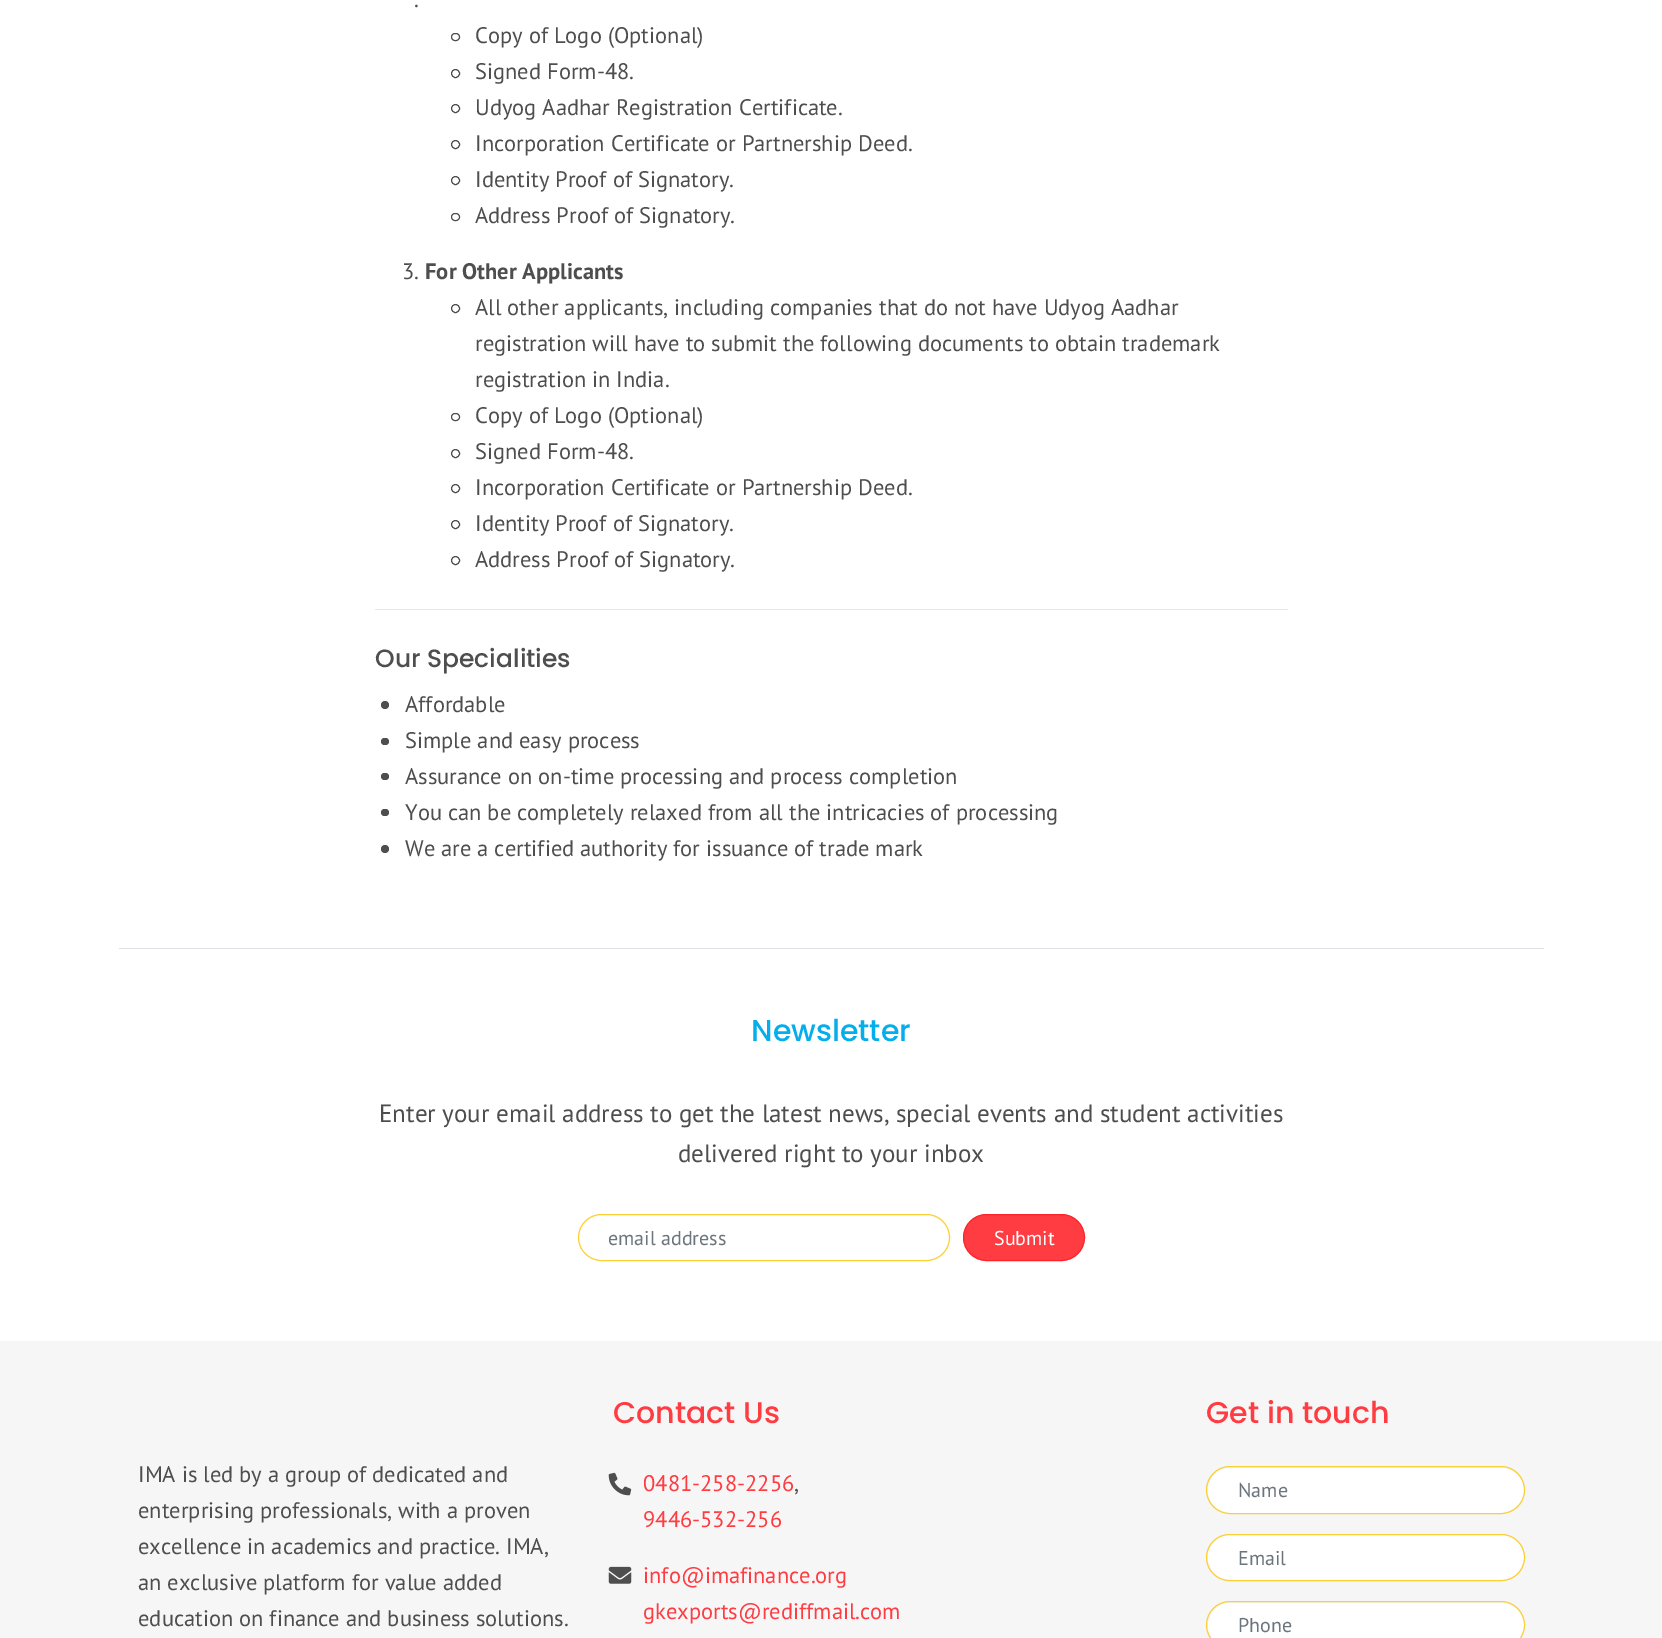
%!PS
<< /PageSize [1662 1638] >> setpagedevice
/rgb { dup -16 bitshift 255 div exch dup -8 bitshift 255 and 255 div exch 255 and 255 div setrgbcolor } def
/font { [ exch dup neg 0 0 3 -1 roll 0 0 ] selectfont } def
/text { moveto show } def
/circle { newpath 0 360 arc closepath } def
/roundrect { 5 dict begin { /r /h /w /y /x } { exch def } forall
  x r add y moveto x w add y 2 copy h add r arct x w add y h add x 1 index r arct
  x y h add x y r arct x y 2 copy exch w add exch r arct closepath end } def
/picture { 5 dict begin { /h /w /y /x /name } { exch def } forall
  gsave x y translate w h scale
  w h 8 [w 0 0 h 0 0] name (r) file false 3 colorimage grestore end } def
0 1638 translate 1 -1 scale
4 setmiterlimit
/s1 { /PTSans-Regular 22.5 font 16#4E4E4E rgb } def
/s2 { /PTSans-Bold 22.5 font 16#4E4E4E rgb } def
/s3 { /Poppins-Medium 25 font 16#4E4E4E rgb } def
/s4 { /Poppins-Medium 30 font 16#04AEEB rgb } def
/s5 { /PTSans-Regular 25 font 16#4E4E4E rgb } def
/s6 { /PTSans-Regular 20 font 16#6C757D rgb } def
/s7 { /PTSans-Regular 20 font 16#FFFFFF rgb } def
/s8 { /Poppins-Medium 30 font 16#FE3C42 rgb } def
/s9 { /PTSans-Regular 22.5 font 16#FE3C42 rgb } def
16#FFFFFF rgb
0 0 1662 1638 rectfill
16#DEE2E6 rgb
119 948 1425 1 rectfill
s1
(.) 414 7 text
451.5 33.5 8 7 3.5 roundrect stroke
(Copy of Logo \(Optional\)) 475 43 text
455.5 73.5 4 circle stroke
(Signed Form-48.) 475 79 text
455.5 108.5 4 circle stroke
(Udyog Aadhar Registration Certificate.) 475 115 text
455.5 144.5 4 circle stroke
(Incorporation Certificate or Partnership Deed.) 475 151 text
455.5 180.5 4 circle stroke
(Identity Proof of Signatory.) 475 187 text
451.5 213.5 8 7 3.5 roundrect stroke
(Address Proof of Signatory.) 475 223 text
(3.) 402 279 text
s2
(For Other Applicants) 425 279 text
455.5 308.5 4 circle stroke
s1
(All other applicants, including companies that do not have Udyog Aadhar) 475 315 text
(registration will have to submit the following documents to obtain trademark) 475 351 text
(registration in India.) 475 387 text
451.5 413.5 8 7 3.5 roundrect stroke
(Copy of Logo \(Optional\)) 475 423 text
455.5 453.5 4 circle stroke
(Signed Form-48.) 475 459 text
455.5 488.5 4 circle stroke
(Incorporation Certificate or Partnership Deed.) 475 495 text
455.5 524.5 4 circle stroke
(Identity Proof of Signatory.) 475 531 text
455.5 560.5 4 circle stroke
(Address Proof of Signatory.) 475 567 text
16#E6E6E6 rgb
375 609 913 1 rectfill
s3
(Our Specialities) 375 667 text
385 705 4 circle fill
s1
(Affordable) 405 712 text
381 738 8 7 3.5 roundrect fill
(Simple and easy process) 405 748 text
381 773 8 7 3.5 roundrect fill
(Assurance on on-time processing and process completion) 405 784 text
381 809 8 7 3.5 roundrect fill
(You can be completely relaxed from all the intricacies of processing) 405 820 text
385 849 4 circle fill
(We are a certified authority for issuance of trade mark) 405 856 text
s4
(Newsletter) 751 1041 text
s5
(Enter your email address to get the latest news, special events and student activities) 379 1122 text
(delivered right to your inbox) 678 1162 text
16#FBD036 rgb
578.5 1214.5 371 46 23 roundrect stroke
s6
(email address) 608 1245 text
16#FE3C42 rgb
963.5 1214.5 121 46 23 roundrect gsave fill grestore
16#FE2329 rgb
stroke
s7
(Submit) 994 1245 text
16#F6F6F6 rgb
0 1341 1662 297 rectfill
s1
(IMA is led by a group of dedicated and) 138 1482 text
(enterprising professionals, with a proven) 138 1518 text
(excellence in academics and practice. IMA,) 138 1554 text
(an exclusive platform for value added) 138 1590 text
(education on finance and business solutions.) 138 1626 text
s8
(Contact Us) 613 1423 text
(pic1.raw) 608 1472 24 24 picture
s9
(0481-258-2256) 643 1491 text
s1
(,) 794 1491 text
s9
(9446-532-256) 643 1527 text
(pic2.raw) 608 1566 24 18 picture
(info@imafinance.org) 643 1583 text
(gkexports@rediffmail.com) 643 1619 text
s8
(Get in touch) 1206 1423 text
16#FFFFFF rgb
1208 1468 316 45 22.5 roundrect fill
16#FBD036 rgb
1206.5 1466.5 318 47 23.5 roundrect stroke
s6
(Name) 1238 1497 text
16#FFFFFF rgb
1208 1535 316 45 22.5 roundrect fill
16#FBD036 rgb
1206.5 1534.5 318 46 23 roundrect stroke
s6
(Email) 1238 1565 text
16#FFFFFF rgb
1208 1603 316 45 22.5 roundrect fill
16#FBD036 rgb
1206.5 1601.5 318 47 23.5 roundrect stroke
s6
(Phone) 1238 1632 text
showpage
